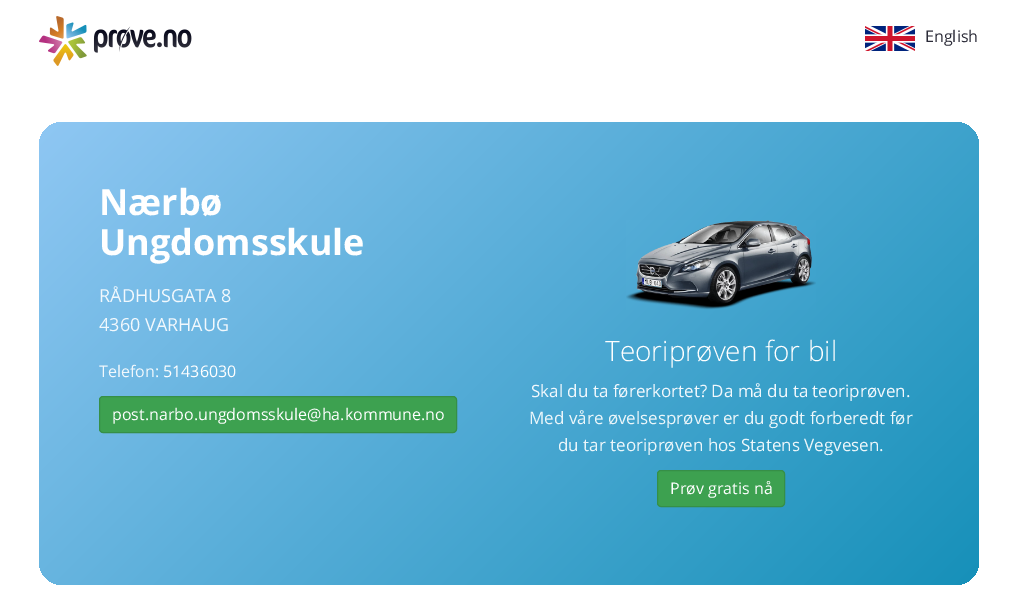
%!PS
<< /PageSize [1017 615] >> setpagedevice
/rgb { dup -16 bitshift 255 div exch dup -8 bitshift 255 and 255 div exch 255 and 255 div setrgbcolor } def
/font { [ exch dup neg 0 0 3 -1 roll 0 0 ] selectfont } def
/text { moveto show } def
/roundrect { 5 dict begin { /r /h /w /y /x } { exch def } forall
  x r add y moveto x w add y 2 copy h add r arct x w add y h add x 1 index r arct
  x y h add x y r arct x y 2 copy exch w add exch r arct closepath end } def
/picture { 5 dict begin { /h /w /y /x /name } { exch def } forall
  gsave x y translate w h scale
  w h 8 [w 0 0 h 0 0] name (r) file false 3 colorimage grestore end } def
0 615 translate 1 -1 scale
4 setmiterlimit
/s1 { /OpenSans-Regular 16 font 16#2B2B38 rgb } def
/s2 { /OpenSans-Bold 36 font 16#FFFFFF rgb } def
/s3 { /OpenSans-Regular 18 font 16#F1F8FD rgb } def
/s4 { /OpenSans-Regular 16 font 16#F1F8FD rgb } def
/s5 { /OpenSans-Regular 16 font 16#FFFFFF rgb } def
/s6 { /OpenSans-Light 28 font 16#FFFFFF rgb } def
/s7 { /OpenSans-Regular 17 font 16#F1F8FD rgb } def
/s8 { /OpenSans-Regular 17 font 16#EBF6FA rgb } def
16#FFFFFF rgb
0 0 1017 615 rectfill
(pic1.raw) 39 16 153 50 picture
(pic2.raw) 865 26 50 25 picture
s1
(English) 925 42 text
gsave 39 122 940 463 24 roundrect clip newpath
<< /ShadingType 2 /ColorSpace /DeviceRGB /Coords [158 2.8 860 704] /Extend [true true] /Function << /FunctionType 2 /Domain [0 1] /C0 [0.561 0.78 0.953] /C1 [0.086 0.565 0.725] /N 1 >> >> shfill grestore
s2
(Nærbø) 99 215 text
(Ungdomsskule) 99 255 text
s3
(RÅDHUSGATA 8) 99 302 text
(4360 VARHAUG) 99 331 text
s4
(Telefon:) 99 377 text
s5
(51436030) 163 377 text
16#3DA150 rgb
99.5 396.5 357 36 3.5 roundrect gsave fill grestore
16#368F47 rgb
stroke
s5
(post.narbo.ungdomsskule@ha.kommune.no) 112 420 text
(pic3.raw) 626 220 190 90 picture
s6
(Teoriprøven for bil) 605 361 text
s7
(Skal du ta førerkortet? Da må du ta teoriprøven.) 531 397 text
s8
(Med våre øvelsesprøver er du godt forberedt før) 529 424 text
(du tar teoriprøven hos Statens Vegvesen.) 558 451 text
16#3DA150 rgb
657.5 470.5 127 36 3.5 roundrect gsave fill grestore
16#368F47 rgb
stroke
s5
(Prøv gratis nå) 670 494 text
showpage
